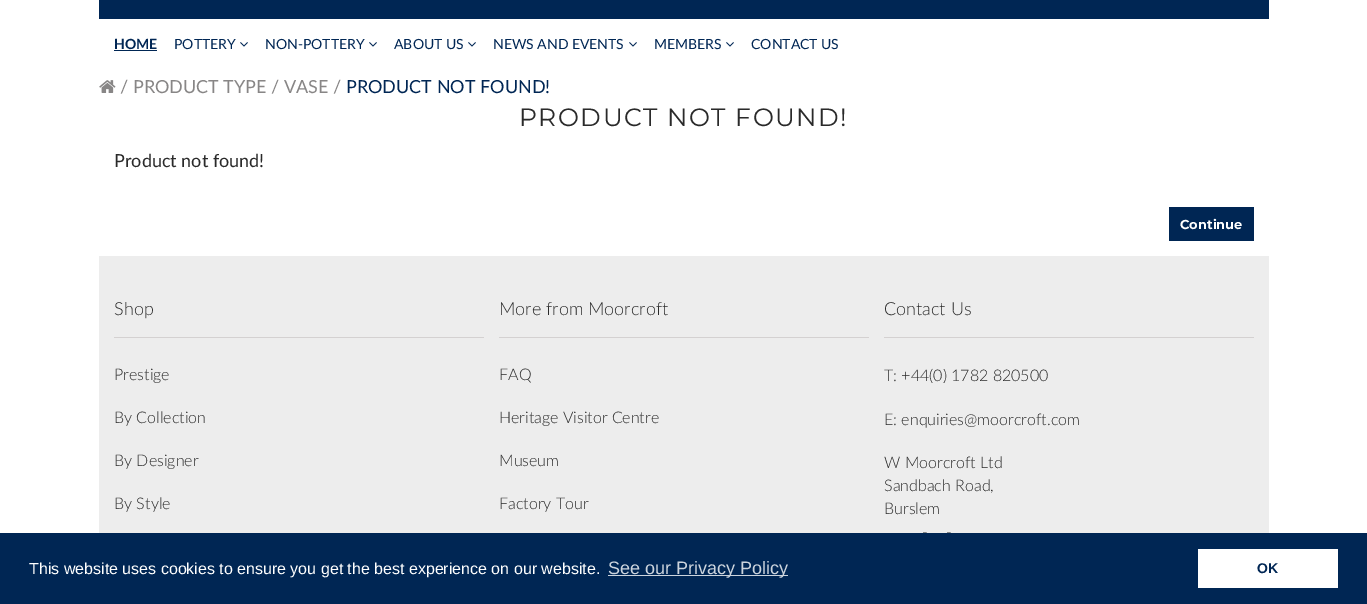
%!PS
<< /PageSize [1367 604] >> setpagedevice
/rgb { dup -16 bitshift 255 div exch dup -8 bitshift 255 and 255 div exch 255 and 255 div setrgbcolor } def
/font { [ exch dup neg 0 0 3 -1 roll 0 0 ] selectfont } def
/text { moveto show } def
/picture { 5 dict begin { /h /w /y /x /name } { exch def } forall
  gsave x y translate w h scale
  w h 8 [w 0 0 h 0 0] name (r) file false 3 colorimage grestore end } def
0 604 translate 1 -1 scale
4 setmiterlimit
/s1 { /Lato-Bold 14 font 16#002654 rgb } def
/s2 { /Lato-Regular 14 font 16#002654 rgb } def
/s3 { /Lato-Regular 18 font 16#888686 rgb } def
/s4 { /Lato-Regular 18 font 16#002654 rgb } def
/s5 { /Lato-Regular 18 font 16#2A2A2A rgb } def
/s6 { /Montserrat-Bold 13 font 16#FFFFFF rgb } def
/s7 { /Lato-Light 18 font 16#2A2A2A rgb } def
/s8 { /Lato-Light 16 font 16#2A2A2A rgb } def
/s9 { /LiberationSans-Regular 16 font 16#FFFFFF rgb } def
/s10 { /LiberationSans-Regular 18 font 16#CCD4DD rgb } def
/s11 { /LiberationSans-Bold 14 font 16#002654 rgb } def
16#FFFFFF rgb
0 0 1367 604 rectfill
16#002654 rgb
99 0 1170 19 rectfill
s1
(HOME) 114 49 text
114 50 43 1 rectfill
s2
(POTTERY) 174 49 text
(pic1.raw) 240 42 8 5 picture
(NON-POTTERY) 265 49 text
(pic1.raw) 369 42 8 5 picture
(ABOUT US) 394 49 text
(pic1.raw) 468 42 8 5 picture
(NEWS AND EVENTS) 493 49 text
(pic1.raw) 629 42 8 5 picture
(MEMBERS) 654 49 text
(pic1.raw) 726 42 8 5 picture
(CONTACT US) 751 49 text
(pic2.raw) 99 80 17 13 picture
s3
(/ PRODUCT TYPE / VASE /) 120 93 text
s4
(PRODUCT NOT FOUND!) 346 93 text
/Montserrat-Regular 25 font
16#2A2A2A rgb
519 126 moveto 1.5 0 (PRODUCT NOT FOUND!) ashow
s5
(Product not found!) 114 167 text
16#002654 rgb
1169 207 85 34 rectfill
s6
(Continue) 1180 229 text
16#EDEDED rgb
99 256 1170 277 rectfill
16#D4D1D1 rgb
114 337 370 1 rectfill
s7
(Shop) 114 315 text
s8
(Prestige) 114 380 text
(By Collection) 114 423 text
(By Designer) 114 466 text
(By Style) 114 509 text
16#D4D1D1 rgb
499 337 370 1 rectfill
s7
(More from Moorcroft) 499 315 text
s8
(FAQ) 499 380 text
(Heritage Visitor Centre) 499 423 text
(Museum) 499 466 text
(Factory Tour) 499 509 text
16#D4D1D1 rgb
884 337 370 1 rectfill
s7
(Contact Us) 884 315 text
s8
(T: +44\(0\) 1782 820500) 884 381 text
(E: enquiries@moorcroft.com) 884 425 text
(W Moorcroft Ltd) 884 468 text
(Sandbach Road,) 884 491 text
(Burslem) 884 514 text
(-) 922 537 text
(-) 946 537 text
16#002654 rgb
0 533 1367 71 rectfill
s9
(This website uses cookies to ensure you get the best experience on our website.) 29 574 text
16#CCD4DD rgb
608 575 180 1 rectfill
s10
(See our Privacy Policy) 608 574 text
16#FFFFFF rgb
1198 549 140 39 rectfill
s11
(OK) 1257 573 text
showpage
